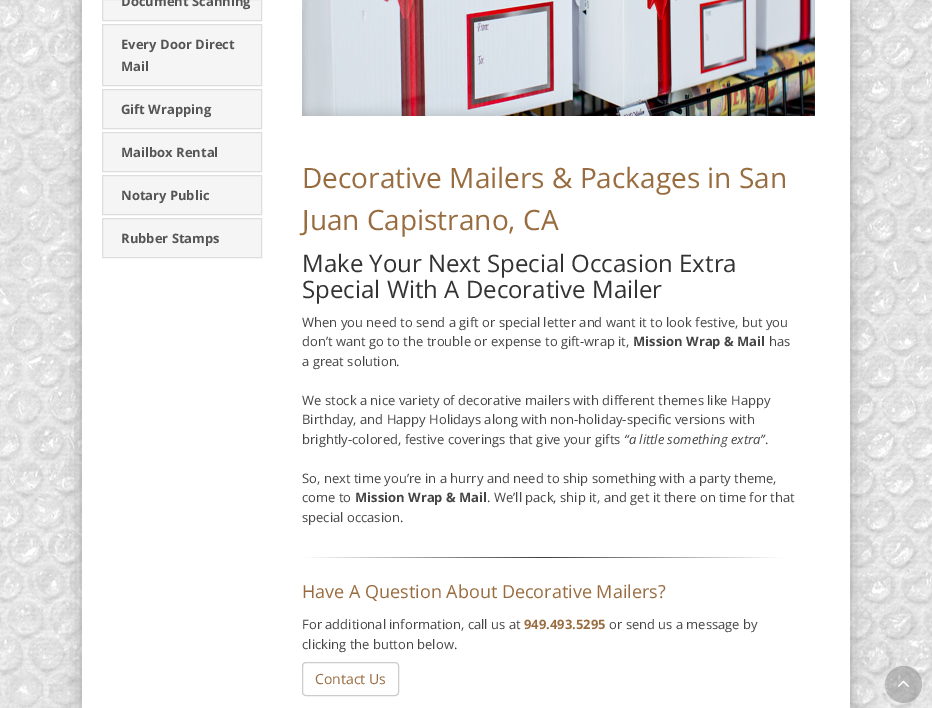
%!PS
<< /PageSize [932 708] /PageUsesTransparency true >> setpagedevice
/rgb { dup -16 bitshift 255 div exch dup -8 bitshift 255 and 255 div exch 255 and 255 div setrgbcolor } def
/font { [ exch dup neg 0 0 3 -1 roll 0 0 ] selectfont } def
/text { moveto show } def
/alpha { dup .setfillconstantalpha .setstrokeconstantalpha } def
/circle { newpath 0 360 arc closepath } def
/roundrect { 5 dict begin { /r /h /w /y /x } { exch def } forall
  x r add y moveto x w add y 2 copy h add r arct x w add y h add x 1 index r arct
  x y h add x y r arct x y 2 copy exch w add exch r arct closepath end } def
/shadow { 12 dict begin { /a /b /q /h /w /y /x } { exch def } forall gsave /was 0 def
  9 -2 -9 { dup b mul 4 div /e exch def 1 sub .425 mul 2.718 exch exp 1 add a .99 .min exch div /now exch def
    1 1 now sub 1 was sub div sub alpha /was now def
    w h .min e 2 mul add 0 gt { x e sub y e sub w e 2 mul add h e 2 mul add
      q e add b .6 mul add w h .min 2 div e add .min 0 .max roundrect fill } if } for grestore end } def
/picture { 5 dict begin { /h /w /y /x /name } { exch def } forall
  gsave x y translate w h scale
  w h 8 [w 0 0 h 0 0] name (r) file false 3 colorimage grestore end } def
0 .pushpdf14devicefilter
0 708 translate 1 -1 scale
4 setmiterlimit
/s1 { /OpenSans-Bold 13 font 16#555555 rgb } def
/s2 { /OpenSans-Regular 28 font 16#996C40 rgb } def
/s3 { /OpenSans-Regular 24 font 16#333333 rgb } def
/s4 { /OpenSans-Regular 13 font 16#444444 rgb } def
/s5 { /OpenSans-Bold 13 font 16#444444 rgb } def
/s6 { /OpenSans-Italic 13 font 16#444444 rgb } def
/s7 { /OpenSans-Regular 18 font 16#996C40 rgb } def
/s8 { /OpenSans-Bold 13 font 16#996C40 rgb } def
/s9 { /OpenSans-Regular 14 font 16#996C40 rgb } def
16#FFFFFF rgb
0 0 932 708 rectfill
(pic1.raw) 0 0 932 708 picture
16#A3A3A3 rgb
82 -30 768 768 0 10 1 shadow
16#FFFFFF rgb
82 0 768 708 rectfill
16#F5F5F5 rgb
102.5 -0.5 moveto 261.5 -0.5 lineto 261.5 20.5 lineto 102.5 20.5 lineto closepath gsave fill grestore
16#DDDDDD rgb
stroke
s1
(Document Scanning) 121 6 text
16#F5F5F5 rgb
102.5 24.5 moveto 261.5 24.5 lineto 261.5 85.5 lineto 102.5 85.5 lineto closepath gsave fill grestore
16#DDDDDD rgb
stroke
s1
(Every Door Direct) 121 49 text
(Mail) 121 71 text
16#F5F5F5 rgb
102.5 89.5 moveto 261.5 89.5 lineto 261.5 128.5 lineto 102.5 128.5 lineto closepath gsave fill grestore
16#DDDDDD rgb
stroke
s1
(Gift Wrapping) 121 114 text
16#F5F5F5 rgb
102.5 132.5 moveto 261.5 132.5 lineto 261.5 171.5 lineto 102.5 171.5 lineto closepath gsave fill grestore
16#DDDDDD rgb
stroke
s1
(Mailbox Rental) 121 157 text
16#F5F5F5 rgb
102.5 175.5 moveto 261.5 175.5 lineto 261.5 214.5 lineto 102.5 214.5 lineto closepath gsave fill grestore
16#DDDDDD rgb
stroke
s1
(Notary Public) 121 200 text
16#F5F5F5 rgb
102.5 218.5 moveto 261.5 218.5 lineto 261.5 257.5 lineto 102.5 257.5 lineto closepath gsave fill grestore
16#DDDDDD rgb
stroke
s1
(Rubber Stamps) 121 243 text
(pic2.raw) 302 0 513 116 picture
s2
(Decorative Mailers & Packages in San) 302 188 text
(Juan Capistrano, CA) 302 230 text
s3
(Make Your Next Special Occasion Extra) 302 272 text
(Special With A Decorative Mailer) 302 298 text
s4
(When you need to send a gift or special letter and want it to look festive, but you) 302 327 text
(don’t want go to the trouble or expense to gift-wrap it,) 302 346 text
s5
(Mission Wrap & Mail) 633 346 text
s4
(has) 769 346 text
(a great solution.) 302 366 text
(We stock a nice variety of decorative mailers with different themes like Happy) 302 405 text
(Birthday, and Happy Holidays along with non-holiday-specific versions with) 302 424 text
(brightly-colored, festive coverings that give your gifts) 302 444 text
s6
(“a little something extra”) 624 444 text
s4
(.) 765 444 text
(So, next time you’re in a hurry and need to ship something with a party theme,) 302 483 text
(come to) 302 502 text
s5
(Mission Wrap & Mail) 355 502 text
s4
(. We’ll pack, ship it, and get it there on time for that) 487 502 text
(special occasion.) 302 522 text
gsave 302 557 moveto 785 557 lineto 785 558 lineto 302 558 lineto closepath clip newpath
<< /ShadingType 2 /ColorSpace /DeviceRGB /Coords [302 558 785 558] /Extend [true true] /Function << /FunctionType 3 /Domain [0 1] /Functions [<< /FunctionType 2 /Domain [0 1] /C0 [1 1 1] /C1 [0.251 0.251 0.251] /N 1 >> << /FunctionType 2 /Domain [0 1] /C0 [0.251 0.251 0.251] /C1 [1 1 1] /N 1 >>] /Bounds [0.5] /Encode [0 1 0 1] >> >> shfill grestore
s7
(Have A Question About Decorative Mailers?) 302 598 text
s4
(For additional information, call us at) 302 629 text
s8
(949.493.5295) 524 629 text
s4
(or send us a message by) 609 629 text
(clicking the button below.) 302 649 text
16#CCCCCC rgb
302.5 662.5 96 33 3.5 roundrect stroke
s9
(Contact Us) 315 684 text
0.2 alpha
16#000000 rgb
903.5 684.5 18.5 circle fill
1 alpha
(pic3.raw) 898 680 11 7 picture
.poppdf14devicefilter showpage
